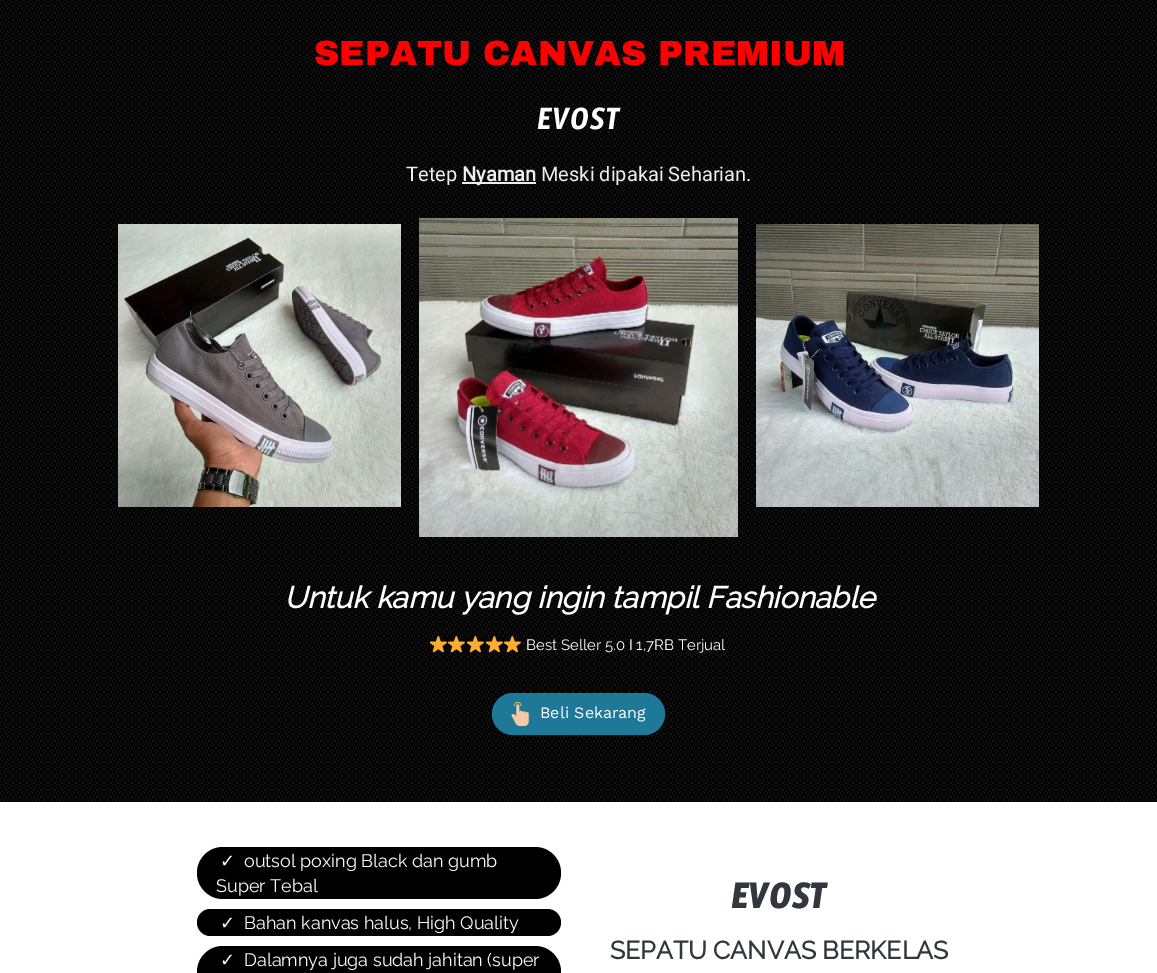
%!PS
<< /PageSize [1157 973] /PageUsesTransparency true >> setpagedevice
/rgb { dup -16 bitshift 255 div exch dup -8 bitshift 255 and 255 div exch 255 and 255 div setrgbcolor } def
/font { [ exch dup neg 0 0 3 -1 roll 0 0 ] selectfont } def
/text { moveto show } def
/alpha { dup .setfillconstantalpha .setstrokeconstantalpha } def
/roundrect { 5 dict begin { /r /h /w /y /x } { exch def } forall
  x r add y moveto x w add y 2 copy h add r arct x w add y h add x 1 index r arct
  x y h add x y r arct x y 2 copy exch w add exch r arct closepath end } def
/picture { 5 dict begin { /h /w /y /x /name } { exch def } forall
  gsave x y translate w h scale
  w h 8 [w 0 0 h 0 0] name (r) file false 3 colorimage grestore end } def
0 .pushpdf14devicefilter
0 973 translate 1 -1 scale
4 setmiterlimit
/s1 { /ArchivoBlack-Black 35 font 16#FF0000 rgb } def
/s2 { /Timmana-Regular 35 font 16#FFFFFF rgb } def
/s3 { /Roboto-Regular 20 font 16#EEEEEE rgb } def
/s4 { /Roboto-Bold 20 font 16#EEEEEE rgb } def
/s5 { /Raleway-BoldItalic 30 font 16#FFFFFF rgb } def
/s6 { /Raleway-Thin 15 font 16#FFFFFF rgb } def
/s7 { /WorkSans-Regular 16 font 16#FFFFFF rgb } def
/s8 { /DejaVuSans-Regular 18 font 16#FFFFFF rgb } def
/s9 { /Raleway-Thin 18 font 16#FFFFFF rgb } def
/s10 { /Timmana-Bold 40 font 16#31373D rgb } def
/s11 { /Raleway-Bold 25 font 16#31373D rgb } def
16#FFFFFF rgb
0 0 1157 973 rectfill
(pic1.raw) 0 0 1157 802 picture
s1
(SEPATU CANVAS PREMIUM) 314 65 text
s2
(EVOST) 537 129 text
s3
(Tetep) 406 181 text
462 182 74 2 rectfill
s4
(Nyaman) 462 181 text
s3
(Meski dipakai Seharian.) 541 181 text
(pic2.raw) 118 224 283 283 picture
(pic3.raw) 419 218 319 319 picture
(pic4.raw) 756 224 283 283 picture
s5
(Untuk kamu yang ingin tampil Fashionable) 284 608 text
(pic5.raw) 429 636 18 17 picture
(pic6.raw) 447 636 18 17 picture
(pic7.raw) 466 636 18 17 picture
(pic8.raw) 485 636 18 17 picture
(pic9.raw) 503 636 18 17 picture
s6
(Best Seller 5.0 I 1,7RB Terjual) 526 650 text
16#1E7898 rgb
492 693 173 42 21 roundrect fill
0.5 alpha
492.5 693.5 172 41 20.5 roundrect stroke
1 alpha
(pic10.raw) 511 702 18 24 picture
s7
(Beli Sekarang) 540 718 text
16#000000 rgb
197 847 364 52 26 roundrect fill
s8
(✓) 220 867 text
s9
(outsol poxing Black dan gumb) 244 867 text
(Super Tebal) 216 892 text
16#000000 rgb
197 909 364 27 13.5 roundrect fill
s8
(✓) 220 929 text
s9
(Bahan kanvas halus, High Quality) 244 929 text
16#000000 rgb
197 946 364 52 26 roundrect fill
s8
(✓) 220 966 text
s9
(Dalamnya juga sudah jahitan \(super) 244 966 text
s10
(EVOST) 731 908 text
s11
(SEPATU CANVAS BERKELAS) 610 959 text
.poppdf14devicefilter showpage
